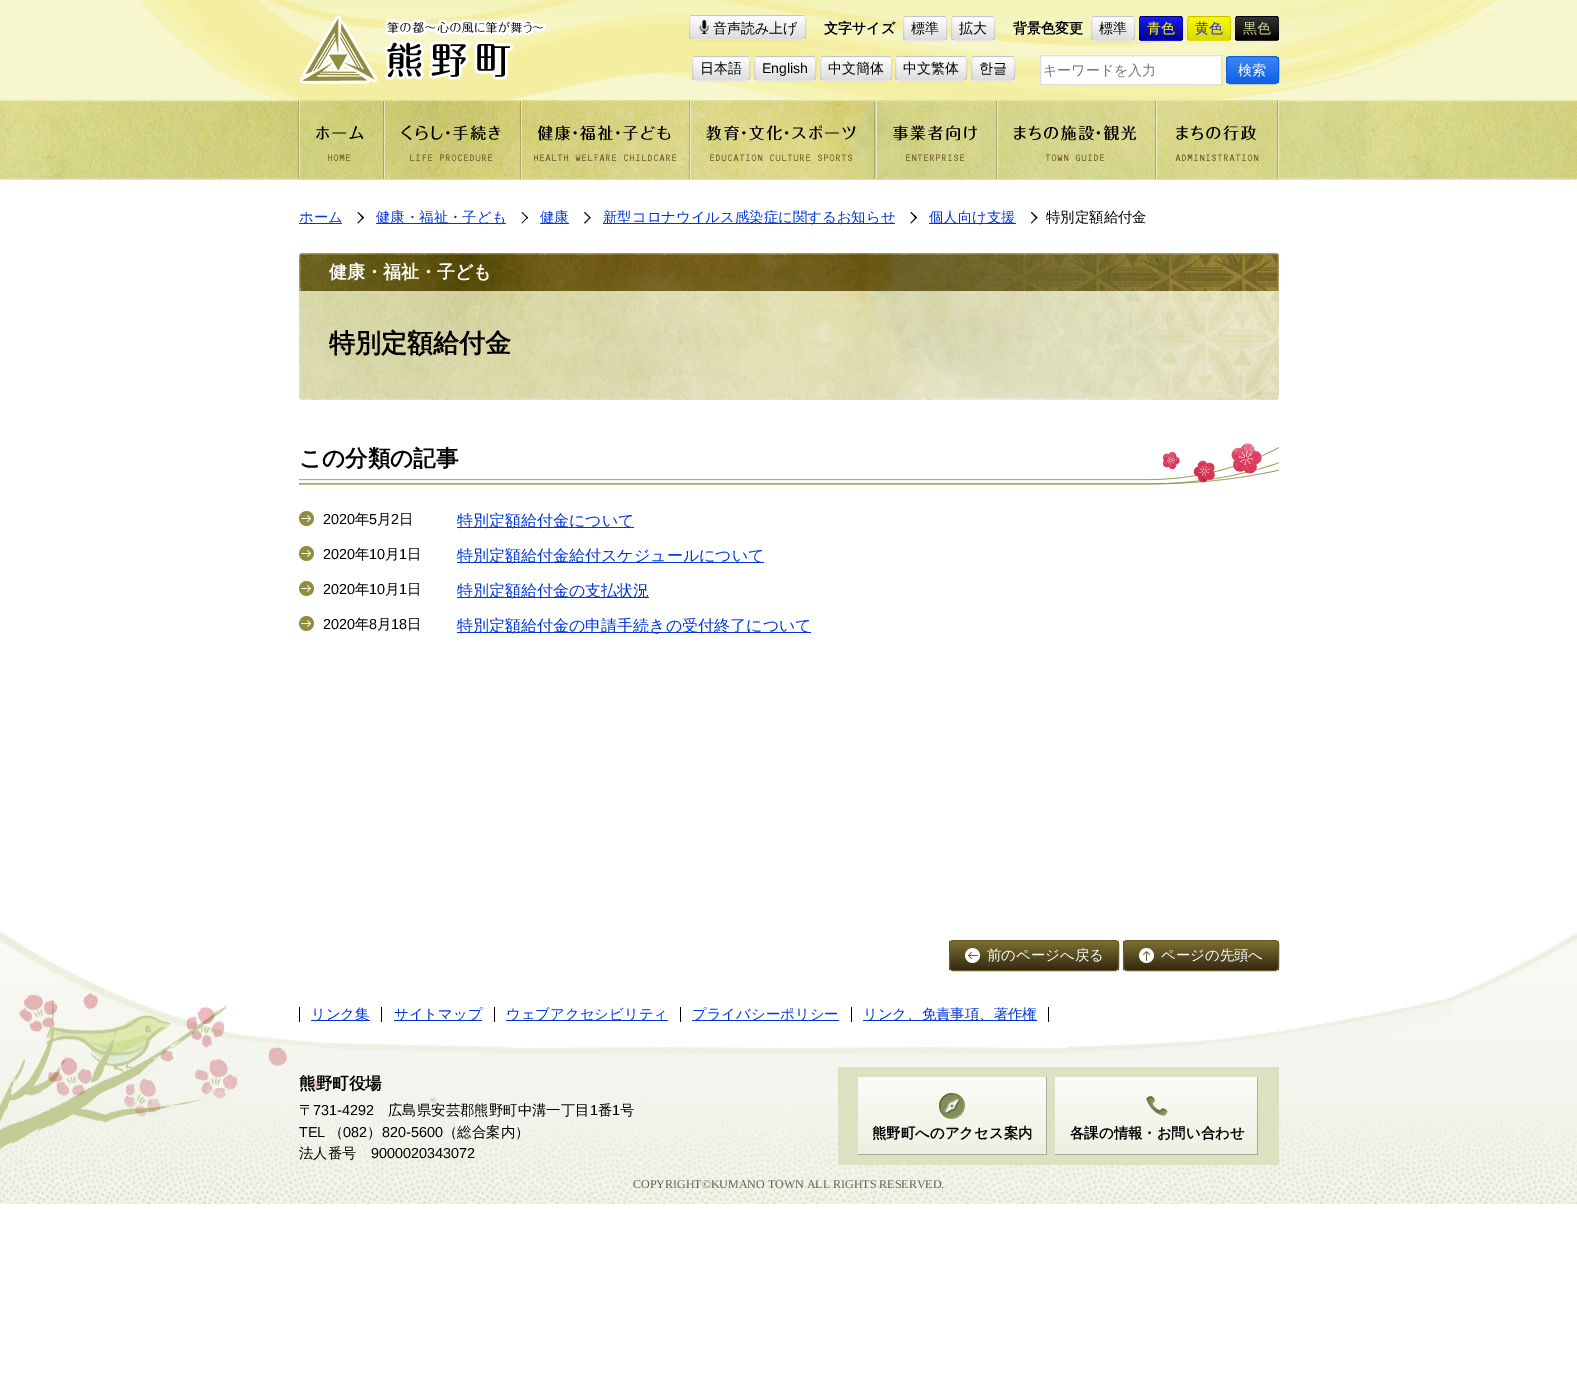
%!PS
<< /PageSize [1577 1373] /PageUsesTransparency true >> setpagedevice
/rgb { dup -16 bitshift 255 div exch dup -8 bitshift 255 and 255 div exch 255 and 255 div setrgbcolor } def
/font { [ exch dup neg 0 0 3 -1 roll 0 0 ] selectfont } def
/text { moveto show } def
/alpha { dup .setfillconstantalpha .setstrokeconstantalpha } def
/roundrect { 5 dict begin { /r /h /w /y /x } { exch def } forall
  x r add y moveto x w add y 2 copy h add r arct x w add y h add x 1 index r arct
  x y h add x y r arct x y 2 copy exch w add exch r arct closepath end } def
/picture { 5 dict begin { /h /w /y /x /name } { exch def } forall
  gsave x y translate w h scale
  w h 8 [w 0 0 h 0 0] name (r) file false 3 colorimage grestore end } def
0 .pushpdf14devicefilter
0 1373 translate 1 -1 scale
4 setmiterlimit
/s1 { /WenQuanYiZenHei-Medium 14 font 16#000000 rgb } def
/s2 { /WenQuanYiZenHei-Bold 14 font 16#000000 rgb } def
/s3 { /WenQuanYiZenHei-Medium 14 font 16#FFFF00 rgb } def
/s4 { /WenQuanYiZenHei-Medium 14 font 16#2626FF rgb } def
/s5 { /WenQuanYiZenHei-Medium 14 font 16#D2D299 rgb } def
/s6 { /LiberationSans-Regular 14 font 16#000000 rgb } def
/s7 { /WenQuanYiZenHei-Medium 14 font 16#757575 rgb } def
/s8 { /WenQuanYiZenHei-Medium 14 font 16#FFFFFF rgb } def
/s9 { /WenQuanYiZenHei-Medium 14.4 font 16#0035D8 rgb } def
/s10 { /WenQuanYiZenHei-Medium 14.4 font 16#000000 rgb } def
/s11 { /WenQuanYiZenHei-Bold 18 font 16#FFFFFF rgb } def
/s12 { /WenQuanYiZenHei-Bold 26 font 16#000000 rgb } def
/s13 { /WenQuanYiZenHei-Bold 22.5 font 16#000000 rgb } def
/s14 { /LiberationSans-Regular 14.4 font 16#000000 rgb } def
/s15 { /WenQuanYiZenHei-Medium 16 font 16#0035D8 rgb } def
/s16 { /WenQuanYiZenHei-Medium 14.4 font 16#FFFFFF rgb } def
/s17 { /WenQuanYiZenHei-Bold 16.5 font 16#000000 rgb } def
/s18 { /WenQuanYiZenHei-Bold 14.4 font 16#000000 rgb } def
/s19 { /LiberationSerif-Regular 12 font 16#61674C rgb } def
16#FFFFFF rgb
0 0 1577 1373 rectfill
16#F7F7CD rgb
0 0 1577 100 rectfill
(pic1.raw) 140 0 1360 100 picture
(pic2.raw) 299 15 247 69 picture
gsave
689 15 117 25 4 roundrect clip newpath
gsave 689 15 moveto 806 15 lineto 806 16 lineto 689 16 lineto closepath clip newpath
<< /ShadingType 2 /ColorSpace /DeviceRGB /Coords [748 -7 748 16] /Extend [true true] /Function << /FunctionType 2 /Domain [0 1] /C0 [1 1 1] /C1 [0.867 0.867 0.867] /N 1 >> >> shfill grestore
gsave 689 16 moveto 806 16 lineto 806 39 lineto 689 39 lineto closepath clip newpath
<< /ShadingType 2 /ColorSpace /DeviceRGB /Coords [748 16 748 39] /Extend [true true] /Function << /FunctionType 2 /Domain [0 1] /C0 [1 1 1] /C1 [0.867 0.867 0.867] /N 1 >> >> shfill grestore
gsave 689 39 moveto 806 39 lineto 806 40 lineto 689 40 lineto closepath clip newpath
<< /ShadingType 2 /ColorSpace /DeviceRGB /Coords [748 39 748 62] /Extend [true true] /Function << /FunctionType 2 /Domain [0 1] /C0 [1 1 1] /C1 [0.867 0.867 0.867] /N 1 >> >> shfill grestore
grestore
0.1 alpha
16#000000 rgb
689.5 15.5 116 24 3.5 roundrect stroke
1 alpha
(pic3.raw) 699 20 10 14 picture
s1
(音声読み上げ) 713 33 text
s2
(文字サイズ) 824 33 text
gsave
903 16 44 25 4 roundrect clip newpath
gsave 903 16 moveto 947 16 lineto 947 17 lineto 903 17 lineto closepath clip newpath
<< /ShadingType 2 /ColorSpace /DeviceRGB /Coords [925 -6 925 17] /Extend [true true] /Function << /FunctionType 2 /Domain [0 1] /C0 [1 1 1] /C1 [0.867 0.867 0.867] /N 1 >> >> shfill grestore
gsave 903 17 moveto 947 17 lineto 947 40 lineto 903 40 lineto closepath clip newpath
<< /ShadingType 2 /ColorSpace /DeviceRGB /Coords [925 17 925 40] /Extend [true true] /Function << /FunctionType 2 /Domain [0 1] /C0 [1 1 1] /C1 [0.867 0.867 0.867] /N 1 >> >> shfill grestore
gsave 903 40 moveto 947 40 lineto 947 41 lineto 903 41 lineto closepath clip newpath
<< /ShadingType 2 /ColorSpace /DeviceRGB /Coords [925 40 925 63] /Extend [true true] /Function << /FunctionType 2 /Domain [0 1] /C0 [1 1 1] /C1 [0.867 0.867 0.867] /N 1 >> >> shfill grestore
grestore
0.1 alpha
903.5 16.5 43 24 3.5 roundrect stroke
1 alpha
s1
(標準) 911 33 text
gsave
951 16 44 25 4 roundrect clip newpath
gsave 951 16 moveto 995 16 lineto 995 17 lineto 951 17 lineto closepath clip newpath
<< /ShadingType 2 /ColorSpace /DeviceRGB /Coords [973 -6 973 17] /Extend [true true] /Function << /FunctionType 2 /Domain [0 1] /C0 [1 1 1] /C1 [0.867 0.867 0.867] /N 1 >> >> shfill grestore
gsave 951 17 moveto 995 17 lineto 995 40 lineto 951 40 lineto closepath clip newpath
<< /ShadingType 2 /ColorSpace /DeviceRGB /Coords [973 17 973 40] /Extend [true true] /Function << /FunctionType 2 /Domain [0 1] /C0 [1 1 1] /C1 [0.867 0.867 0.867] /N 1 >> >> shfill grestore
gsave 951 40 moveto 995 40 lineto 995 41 lineto 951 41 lineto closepath clip newpath
<< /ShadingType 2 /ColorSpace /DeviceRGB /Coords [973 40 973 63] /Extend [true true] /Function << /FunctionType 2 /Domain [0 1] /C0 [1 1 1] /C1 [0.867 0.867 0.867] /N 1 >> >> shfill grestore
grestore
0.1 alpha
951.5 16.5 43 24 3.5 roundrect stroke
1 alpha
(拡大) 959 33 text
s2
(背景色変更) 1013 33 text
gsave
1091 16 44 25 4 roundrect clip newpath
gsave 1091 16 moveto 1135 16 lineto 1135 17 lineto 1091 17 lineto closepath clip newpath
<< /ShadingType 2 /ColorSpace /DeviceRGB /Coords [1113 -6 1113 17] /Extend [true true] /Function << /FunctionType 2 /Domain [0 1] /C0 [1 1 1] /C1 [0.867 0.867 0.867] /N 1 >> >> shfill grestore
gsave 1091 17 moveto 1135 17 lineto 1135 40 lineto 1091 40 lineto closepath clip newpath
<< /ShadingType 2 /ColorSpace /DeviceRGB /Coords [1113 17 1113 40] /Extend [true true] /Function << /FunctionType 2 /Domain [0 1] /C0 [1 1 1] /C1 [0.867 0.867 0.867] /N 1 >> >> shfill grestore
gsave 1091 40 moveto 1135 40 lineto 1135 41 lineto 1091 41 lineto closepath clip newpath
<< /ShadingType 2 /ColorSpace /DeviceRGB /Coords [1113 40 1113 63] /Extend [true true] /Function << /FunctionType 2 /Domain [0 1] /C0 [1 1 1] /C1 [0.867 0.867 0.867] /N 1 >> >> shfill grestore
grestore
0.1 alpha
1091.5 16.5 43 24 3.5 roundrect stroke
1 alpha
s1
(標準) 1099 33 text
gsave
1139 16 44 25 4 roundrect clip newpath
gsave 1139 16 moveto 1183 16 lineto 1183 17 lineto 1139 17 lineto closepath clip newpath
<< /ShadingType 2 /ColorSpace /DeviceRGB /Coords [1161 -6 1161 17] /Extend [true true] /Function << /FunctionType 2 /Domain [0 1] /C0 [0.102 0.102 0.957] /C1 [0 0 0.549] /N 1 >> >> shfill grestore
gsave 1139 17 moveto 1183 17 lineto 1183 40 lineto 1139 40 lineto closepath clip newpath
<< /ShadingType 2 /ColorSpace /DeviceRGB /Coords [1161 17 1161 40] /Extend [true true] /Function << /FunctionType 2 /Domain [0 1] /C0 [0.102 0.102 0.957] /C1 [0 0 0.549] /N 1 >> >> shfill grestore
gsave 1139 40 moveto 1183 40 lineto 1183 41 lineto 1139 41 lineto closepath clip newpath
<< /ShadingType 2 /ColorSpace /DeviceRGB /Coords [1161 40 1161 63] /Extend [true true] /Function << /FunctionType 2 /Domain [0 1] /C0 [0.102 0.102 0.957] /C1 [0 0 0.549] /N 1 >> >> shfill grestore
grestore
0.1 alpha
1139.5 16.5 43 24 3.5 roundrect stroke
1 alpha
s3
(青色) 1147 33 text
gsave
1187 16 44 25 4 roundrect clip newpath
gsave 1187 16 moveto 1231 16 lineto 1231 17 lineto 1187 17 lineto closepath clip newpath
<< /ShadingType 2 /ColorSpace /DeviceRGB /Coords [1209 -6 1209 17] /Extend [true true] /Function << /FunctionType 2 /Domain [0 1] /C0 [0.984 0.984 0] /C1 [0.851 0.851 0] /N 1 >> >> shfill grestore
gsave 1187 17 moveto 1231 17 lineto 1231 40 lineto 1187 40 lineto closepath clip newpath
<< /ShadingType 2 /ColorSpace /DeviceRGB /Coords [1209 17 1209 40] /Extend [true true] /Function << /FunctionType 2 /Domain [0 1] /C0 [0.984 0.984 0] /C1 [0.851 0.851 0] /N 1 >> >> shfill grestore
gsave 1187 40 moveto 1231 40 lineto 1231 41 lineto 1187 41 lineto closepath clip newpath
<< /ShadingType 2 /ColorSpace /DeviceRGB /Coords [1209 40 1209 63] /Extend [true true] /Function << /FunctionType 2 /Domain [0 1] /C0 [0.984 0.984 0] /C1 [0.851 0.851 0] /N 1 >> >> shfill grestore
grestore
0.1 alpha
16#000000 rgb
1187.5 16.5 43 24 3.5 roundrect stroke
1 alpha
s4
(黄色) 1195 33 text
gsave
1235 16 44 25 4 roundrect clip newpath
gsave 1235 16 moveto 1279 16 lineto 1279 17 lineto 1235 17 lineto closepath clip newpath
<< /ShadingType 2 /ColorSpace /DeviceRGB /Coords [1257 -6 1257 17] /Extend [true true] /Function << /FunctionType 2 /Domain [0 1] /C0 [0.2 0.2 0.2] /C1 [0 0 0] /N 1 >> >> shfill grestore
gsave 1235 17 moveto 1279 17 lineto 1279 40 lineto 1235 40 lineto closepath clip newpath
<< /ShadingType 2 /ColorSpace /DeviceRGB /Coords [1257 17 1257 40] /Extend [true true] /Function << /FunctionType 2 /Domain [0 1] /C0 [0.2 0.2 0.2] /C1 [0 0 0] /N 1 >> >> shfill grestore
gsave 1235 40 moveto 1279 40 lineto 1279 41 lineto 1235 41 lineto closepath clip newpath
<< /ShadingType 2 /ColorSpace /DeviceRGB /Coords [1257 40 1257 63] /Extend [true true] /Function << /FunctionType 2 /Domain [0 1] /C0 [0.2 0.2 0.2] /C1 [0 0 0] /N 1 >> >> shfill grestore
grestore
0.1 alpha
16#000000 rgb
1235.5 16.5 43 24 3.5 roundrect stroke
1 alpha
s5
(黒色) 1243 33 text
gsave
692 56 58 25 4 roundrect clip newpath
gsave 692 56 moveto 750 56 lineto 750 57 lineto 692 57 lineto closepath clip newpath
<< /ShadingType 2 /ColorSpace /DeviceRGB /Coords [721 34 721 57] /Extend [true true] /Function << /FunctionType 2 /Domain [0 1] /C0 [1 1 1] /C1 [0.867 0.867 0.867] /N 1 >> >> shfill grestore
gsave 692 57 moveto 750 57 lineto 750 80 lineto 692 80 lineto closepath clip newpath
<< /ShadingType 2 /ColorSpace /DeviceRGB /Coords [721 57 721 80] /Extend [true true] /Function << /FunctionType 2 /Domain [0 1] /C0 [1 1 1] /C1 [0.867 0.867 0.867] /N 1 >> >> shfill grestore
gsave 692 80 moveto 750 80 lineto 750 81 lineto 692 81 lineto closepath clip newpath
<< /ShadingType 2 /ColorSpace /DeviceRGB /Coords [721 80 721 103] /Extend [true true] /Function << /FunctionType 2 /Domain [0 1] /C0 [1 1 1] /C1 [0.867 0.867 0.867] /N 1 >> >> shfill grestore
grestore
0.1 alpha
16#000000 rgb
692.5 56.5 57 24 3.5 roundrect stroke
1 alpha
(日本語) 700 73 text
gsave
754 56 62 25 4 roundrect clip newpath
gsave 754 56 moveto 816 56 lineto 816 57 lineto 754 57 lineto closepath clip newpath
<< /ShadingType 2 /ColorSpace /DeviceRGB /Coords [785 34 785 57] /Extend [true true] /Function << /FunctionType 2 /Domain [0 1] /C0 [1 1 1] /C1 [0.867 0.867 0.867] /N 1 >> >> shfill grestore
gsave 754 57 moveto 816 57 lineto 816 80 lineto 754 80 lineto closepath clip newpath
<< /ShadingType 2 /ColorSpace /DeviceRGB /Coords [785 57 785 80] /Extend [true true] /Function << /FunctionType 2 /Domain [0 1] /C0 [1 1 1] /C1 [0.867 0.867 0.867] /N 1 >> >> shfill grestore
gsave 754 80 moveto 816 80 lineto 816 81 lineto 754 81 lineto closepath clip newpath
<< /ShadingType 2 /ColorSpace /DeviceRGB /Coords [785 80 785 103] /Extend [true true] /Function << /FunctionType 2 /Domain [0 1] /C0 [1 1 1] /C1 [0.867 0.867 0.867] /N 1 >> >> shfill grestore
grestore
0.1 alpha
754.5 56.5 61 24 3.5 roundrect stroke
1 alpha
s6
(English) 762 73 text
gsave
820 56 72 25 4 roundrect clip newpath
gsave 820 56 moveto 892 56 lineto 892 57 lineto 820 57 lineto closepath clip newpath
<< /ShadingType 2 /ColorSpace /DeviceRGB /Coords [856 34 856 57] /Extend [true true] /Function << /FunctionType 2 /Domain [0 1] /C0 [1 1 1] /C1 [0.867 0.867 0.867] /N 1 >> >> shfill grestore
gsave 820 57 moveto 892 57 lineto 892 80 lineto 820 80 lineto closepath clip newpath
<< /ShadingType 2 /ColorSpace /DeviceRGB /Coords [856 57 856 80] /Extend [true true] /Function << /FunctionType 2 /Domain [0 1] /C0 [1 1 1] /C1 [0.867 0.867 0.867] /N 1 >> >> shfill grestore
gsave 820 80 moveto 892 80 lineto 892 81 lineto 820 81 lineto closepath clip newpath
<< /ShadingType 2 /ColorSpace /DeviceRGB /Coords [856 80 856 103] /Extend [true true] /Function << /FunctionType 2 /Domain [0 1] /C0 [1 1 1] /C1 [0.867 0.867 0.867] /N 1 >> >> shfill grestore
grestore
0.1 alpha
820.5 56.5 71 24 3.5 roundrect stroke
1 alpha
s1
(中文簡体) 828 73 text
gsave
895 56 72 25 4 roundrect clip newpath
gsave 895 56 moveto 967 56 lineto 967 57 lineto 895 57 lineto closepath clip newpath
<< /ShadingType 2 /ColorSpace /DeviceRGB /Coords [931 34 931 57] /Extend [true true] /Function << /FunctionType 2 /Domain [0 1] /C0 [1 1 1] /C1 [0.867 0.867 0.867] /N 1 >> >> shfill grestore
gsave 895 57 moveto 967 57 lineto 967 80 lineto 895 80 lineto closepath clip newpath
<< /ShadingType 2 /ColorSpace /DeviceRGB /Coords [931 57 931 80] /Extend [true true] /Function << /FunctionType 2 /Domain [0 1] /C0 [1 1 1] /C1 [0.867 0.867 0.867] /N 1 >> >> shfill grestore
gsave 895 80 moveto 967 80 lineto 967 81 lineto 895 81 lineto closepath clip newpath
<< /ShadingType 2 /ColorSpace /DeviceRGB /Coords [931 80 931 103] /Extend [true true] /Function << /FunctionType 2 /Domain [0 1] /C0 [1 1 1] /C1 [0.867 0.867 0.867] /N 1 >> >> shfill grestore
grestore
0.1 alpha
895.5 56.5 71 24 3.5 roundrect stroke
1 alpha
(中文繁体) 903 73 text
gsave
971 56 44 25 4 roundrect clip newpath
gsave 971 56 moveto 1015 56 lineto 1015 57 lineto 971 57 lineto closepath clip newpath
<< /ShadingType 2 /ColorSpace /DeviceRGB /Coords [993 34 993 57] /Extend [true true] /Function << /FunctionType 2 /Domain [0 1] /C0 [1 1 1] /C1 [0.867 0.867 0.867] /N 1 >> >> shfill grestore
gsave 971 57 moveto 1015 57 lineto 1015 80 lineto 971 80 lineto closepath clip newpath
<< /ShadingType 2 /ColorSpace /DeviceRGB /Coords [993 57 993 80] /Extend [true true] /Function << /FunctionType 2 /Domain [0 1] /C0 [1 1 1] /C1 [0.867 0.867 0.867] /N 1 >> >> shfill grestore
gsave 971 80 moveto 1015 80 lineto 1015 81 lineto 971 81 lineto closepath clip newpath
<< /ShadingType 2 /ColorSpace /DeviceRGB /Coords [993 80 993 103] /Extend [true true] /Function << /FunctionType 2 /Domain [0 1] /C0 [1 1 1] /C1 [0.867 0.867 0.867] /N 1 >> >> shfill grestore
grestore
0.1 alpha
971.5 56.5 43 24 3.5 roundrect stroke
1 alpha
(한글) 979 73 text
16#FFFFFF rgb
1040.5 55.5 moveto 1221.5 55.5 lineto 1221.5 84.5 lineto 1040.5 84.5 lineto closepath gsave fill grestore
16#DDDDDD rgb
stroke
s7
(キーワードを入力) 1043 75 text
gsave
1226 56 53 28 4 roundrect clip newpath
gsave 1226 57 moveto 1279 57 lineto 1279 83 lineto 1226 83 lineto closepath clip newpath
<< /ShadingType 2 /ColorSpace /DeviceRGB /Coords [1253 57 1253 83] /Extend [true true] /Function << /FunctionType 2 /Domain [0 1] /C0 [0.247 0.522 0.957] /C1 [0.055 0.376 0.902] /N 1 >> >> shfill grestore
grestore
16#0E60E6 rgb
1226.5 56.5 52 27 3.5 roundrect stroke
s8
(検索) 1238 75 text
(pic4.raw) 0 100 1577 80 picture
(pic5.raw) 298 100 86 80 picture
(pic6.raw) 384 100 137 80 picture
(pic7.raw) 521 100 169 80 picture
(pic8.raw) 690 100 185 80 picture
(pic9.raw) 876 100 121 80 picture
(pic10.raw) 997 100 159 80 picture
(pic11.raw) 1156 100 123 80 picture
16#0035D8 rgb
299 223 43 1 rectfill
s9
(ホーム) 299 222 text
16#000000 rgb
358 212 moveto 364 217.5 lineto 363 218.5 lineto 357.5 212.5 lineto closepath fill
363 217 moveto 364 217.5 lineto 358 223.5 lineto 357.5 223 lineto closepath fill
16#0035D8 rgb
376 223 130 1 rectfill
(健康・福祉・子ども) 376 222 text
16#000000 rgb
522 212 moveto 528 217.5 lineto 527.5 218.5 lineto 521.5 212.5 lineto closepath fill
527.5 217 moveto 528 217.5 lineto 522 223.5 lineto 521.5 223 lineto closepath fill
16#0035D8 rgb
540 223 29 1 rectfill
(健康) 540 222 text
16#000000 rgb
585 212 moveto 590.5 217.5 lineto 590 218.5 lineto 584 212.5 lineto closepath fill
590 217 moveto 590.5 217.5 lineto 585 223.5 lineto 584 223 lineto closepath fill
16#0035D8 rgb
603 223 292 1 rectfill
(新型コロナウイルス感染症に関するお知らせ) 603 222 text
16#000000 rgb
911 212 moveto 917 217.5 lineto 916 218.5 lineto 910.5 212.5 lineto closepath fill
916 217 moveto 917 217.5 lineto 911 223.5 lineto 910.5 223 lineto closepath fill
16#0035D8 rgb
929 223 87 1 rectfill
(個人向け支援) 929 222 text
16#000000 rgb
1031.5 212 moveto 1037.5 217.5 lineto 1036.5 218.5 lineto 1031 212.5 lineto closepath fill
1036.5 217 moveto 1037.5 217.5 lineto 1031.5 223.5 lineto 1031 223 lineto closepath fill
(特別定額給付金) 1046 222 text
(pic12.raw) 299 291 980 109 picture
(pic13.raw) 299 253 980 38 picture
s11
(健康・福祉・子ども) 329 278 text
s12
(特別定額給付金) 329 352 text
(pic14.raw) 299 443 980 42 picture
s13
(この分類の記事) 299 466 text
(pic15.raw) 299 511 15 15 picture
s14
(2020) 323 524 text
s10
(年) 355 524 text
s14
(5) 369 524 text
s10
(月) 377 524 text
s14
(2) 391 524 text
s10
(日) 399 524 text
16#0035D8 rgb
457 527 177 1 rectfill
s15
(特別定額給付金について) 457 526 text
(pic15.raw) 299 546 15 15 picture
s14
(2020) 323 559 text
s10
(年) 355 559 text
s14
(10) 369 559 text
s10
(月) 385 559 text
s14
(1) 399 559 text
s10
(日) 407 559 text
16#0035D8 rgb
457 562 307 1 rectfill
s15
(特別定額給付金給付スケジュールについて) 457 561 text
(pic15.raw) 299 581 15 15 picture
s14
(2020) 323 594 text
s10
(年) 355 594 text
s14
(10) 369 594 text
s10
(月) 385 594 text
s14
(1) 399 594 text
s10
(日) 407 594 text
16#0035D8 rgb
457 597 192 1 rectfill
s15
(特別定額給付金の支払状況) 457 596 text
(pic15.raw) 299 616 15 15 picture
s14
(2020) 323 629 text
s10
(年) 355 629 text
s14
(8) 369 629 text
s10
(月) 377 629 text
s14
(18) 391 629 text
s10
(日) 407 629 text
16#0035D8 rgb
457 632 354 1 rectfill
s15
(特別定額給付金の申請手続きの受付終了について) 457 631 text
(pic18.raw) 0 931 1577 273 picture
gsave
949 940 170 31 4 roundrect clip newpath
gsave 949 941 moveto 1119 941 lineto 1119 970 lineto 949 970 lineto closepath clip newpath
<< /ShadingType 2 /ColorSpace /DeviceRGB /Coords [1034 941 1034 970] /Extend [true true] /Function << /FunctionType 2 /Domain [0 1] /C0 [0.49 0.439 0.196] /C1 [0.2 0.161 0.071] /N 1 >> >> shfill grestore
grestore
16#6D5826 rgb
949.5 940.5 169 30 3.5 roundrect stroke
(pic16.raw) 965 948 15 15 picture
s16
(前のページへ戻る) 987 960 text
gsave
1123 940 156 31 4 roundrect clip newpath
gsave 1123 941 moveto 1279 941 lineto 1279 970 lineto 1123 970 lineto closepath clip newpath
<< /ShadingType 2 /ColorSpace /DeviceRGB /Coords [1201 941 1201 970] /Extend [true true] /Function << /FunctionType 2 /Domain [0 1] /C0 [0.49 0.439 0.196] /C1 [0.2 0.161 0.071] /N 1 >> >> shfill grestore
grestore
16#6D5826 rgb
1123.5 940.5 155 30 3.5 roundrect stroke
(pic17.raw) 1139 948 15 15 picture
s16
(ページの先頭へ) 1161 960 text
16#000000 rgb
299 1007 1 15 rectfill
16#0035D8 rgb
311 1020 59 1 rectfill
(リンク集) 311 1019 text
16#000000 rgb
381 1007 1 15 rectfill
16#0035D8 rgb
394 1020 88 1 rectfill
(サイトマップ) 394 1019 text
16#000000 rgb
494 1007 1 15 rectfill
16#0035D8 rgb
506 1020 162 1 rectfill
(ウェブアクセシビリティ) 506 1019 text
16#000000 rgb
680 1007 1 15 rectfill
16#0035D8 rgb
692 1020 147 1 rectfill
(プライバシーポリシー) 692 1019 text
16#000000 rgb
1048 1007 1 15 rectfill
851 1007 1 15 rectfill
16#0035D8 rgb
863 1020 174 1 rectfill
(リンク、免責事項、著作権) 863 1019 text
s17
(熊野町役場) 299 1089 text
s10
(〒) 299 1115 text
s14
(731-4292) 313 1115 text
s10
(広島県安芸郡熊野町中溝一丁目) 388 1115 text
s14
(1) 590 1115 text
s10
(番) 598 1115 text
s14
(1) 612 1115 text
s10
(号) 620 1115 text
s14
(TEL) 299 1137 text
s10
(（) 329 1137 text
s14
(082) 343 1137 text
s10
(）) 367 1137 text
s14
(820-5600) 382 1137 text
s10
(（総合案内）) 443 1137 text
(法人番号) 299 1158 text
s14
(9000020343072) 371 1158 text
16#DBE1C1 rgb
838 1067 441 98 rectfill
gsave 858 1077 moveto 1047 1077 lineto 1047 1155 lineto 858 1155 lineto closepath clip newpath
<< /ShadingType 2 /ColorSpace /DeviceRGB /Coords [953 1077 953 1155] /Extend [true true] /Function << /FunctionType 2 /Domain [0 1] /C0 [0.984 0.988 0.973] /C1 [0.929 0.941 0.878] /N 1 >> >> shfill grestore
gsave
858 1077 189 78 rectclip
0.3 alpha
16#000000 rgb
759 978 moveto 1146 978 lineto 1146 1254 lineto 759 1254 lineto closepath 857 1076 moveto 1046 1076 lineto 1046 1154 lineto 857 1154 lineto closepath eofill
grestore
(pic19.raw) 939 1093 26 26 picture
s18
(熊野町へのアクセス案内) 872 1138 text
gsave 1055 1077 moveto 1258 1077 lineto 1258 1155 lineto 1055 1155 lineto closepath clip newpath
<< /ShadingType 2 /ColorSpace /DeviceRGB /Coords [1157 1077 1157 1155] /Extend [true true] /Function << /FunctionType 2 /Domain [0 1] /C0 [0.984 0.988 0.973] /C1 [0.929 0.941 0.878] /N 1 >> >> shfill grestore
gsave
1055 1077 203 78 rectclip
0.3 alpha
956 978 moveto 1357 978 lineto 1357 1254 lineto 956 1254 lineto closepath 1054 1076 moveto 1257 1076 lineto 1257 1154 lineto 1054 1154 lineto closepath eofill
grestore
(pic20.raw) 1146 1096 22 20 picture
(各課の情報・お問い合わせ) 1070 1138 text
s19
(COPYRIGHT©KUMANO TOWN ALL RIGHTS RESERVED.) 633 1188 text
.poppdf14devicefilter showpage
